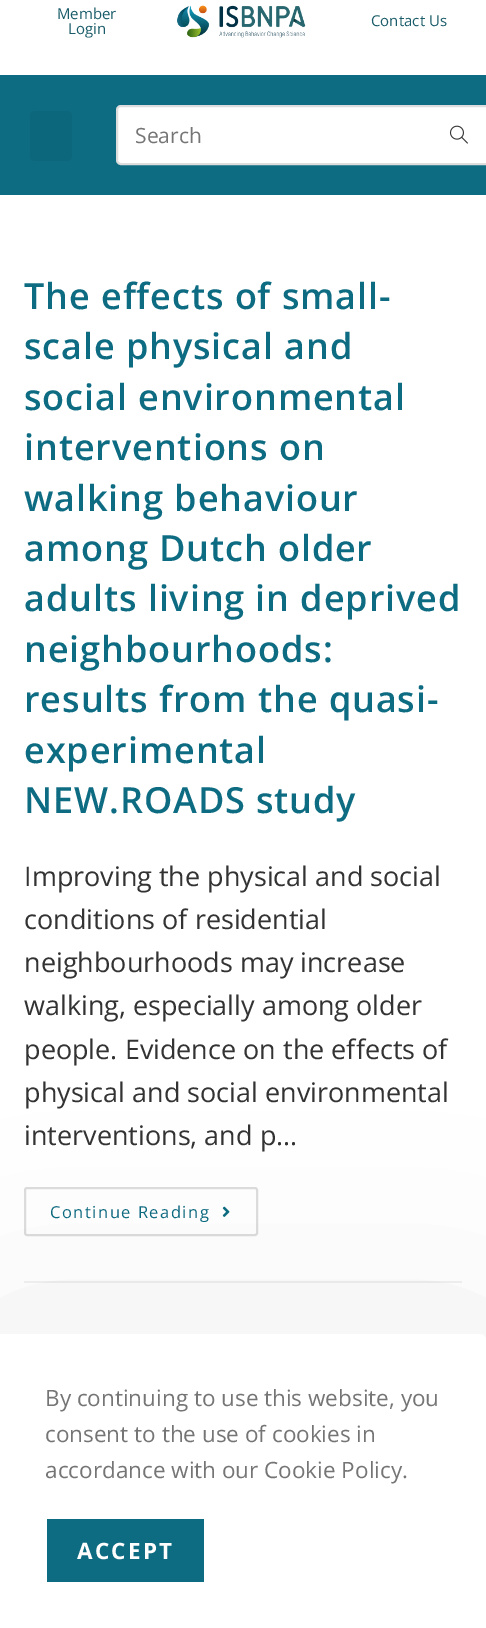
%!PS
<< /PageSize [486 1628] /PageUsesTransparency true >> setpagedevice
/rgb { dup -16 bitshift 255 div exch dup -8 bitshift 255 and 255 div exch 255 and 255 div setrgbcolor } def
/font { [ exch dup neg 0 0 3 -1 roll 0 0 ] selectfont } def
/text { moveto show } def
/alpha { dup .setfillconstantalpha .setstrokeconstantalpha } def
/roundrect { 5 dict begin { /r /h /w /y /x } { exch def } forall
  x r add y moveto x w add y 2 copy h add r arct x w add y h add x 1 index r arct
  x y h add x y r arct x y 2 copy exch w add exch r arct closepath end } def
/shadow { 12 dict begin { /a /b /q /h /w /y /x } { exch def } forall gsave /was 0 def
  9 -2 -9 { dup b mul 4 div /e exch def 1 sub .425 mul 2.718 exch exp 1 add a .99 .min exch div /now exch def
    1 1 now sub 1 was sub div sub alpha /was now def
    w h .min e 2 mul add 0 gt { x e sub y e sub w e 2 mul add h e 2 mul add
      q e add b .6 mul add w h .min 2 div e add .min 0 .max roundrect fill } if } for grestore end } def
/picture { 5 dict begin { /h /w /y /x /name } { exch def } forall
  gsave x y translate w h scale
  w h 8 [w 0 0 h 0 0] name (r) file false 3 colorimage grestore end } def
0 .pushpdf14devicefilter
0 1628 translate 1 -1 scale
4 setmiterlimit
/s1 { /OpenSans-Regular 15 font 16#1A5C69 rgb } def
/s2 { /OpenSans-Regular 21 font 16#757575 rgb } def
/s3 { /OpenSans-Regular 27 font 16#333333 rgb } def
/s4 { /OpenSans-Regular 22.5 font 16#757575 rgb } def
16#FFFFFF rgb
0 0 486 1628 rectfill
s1
(Member) 57 19 text
(Login) 68 34 text
(pic1.raw) 177 5 129 33 picture
(Contact Us) 371 26 text
16#0D6B82 rgb
0 75 486 120 rectfill
16#0C667C rgb
30 111 42 50 5 roundrect fill
16#FFFFFF rgb
117 106 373 58 4 roundrect gsave fill grestore
16#DDDDDD rgb
2 setlinewidth
stroke
s2
(Search) 135 143 text
(pic2.raw) 449 125 19 19 picture
16#F1F1F1 rgb
24 1281 438 2 rectfill
/OpenSans-SemiBold 36 font
16#0D6B82 rgb
24 309 moveto 0.9 0 (The effects of small-) ashow
24 359 moveto 0.9 0 (scale physical and) ashow
24 410 moveto 0.9 0 (social environmental) ashow
24 460 moveto 0.9 0 (interventions on) ashow
24 511 moveto 0.9 0 (walking behaviour) ashow
24 561 moveto 0.9 0 (among Dutch older) ashow
24 611 moveto 0.9 0 (adults living in deprived) ashow
24 662 moveto 0.9 0 (neighbourhoods:) ashow
24 712 moveto 0.9 0 (results from the quasi-) ashow
24 763 moveto 0.9 0 (experimental) ashow
24 813 moveto 0.9 0 (NEW.ROADS study) ashow
s3
(Improving the physical and social) 24 886 text
(conditions of residential) 24 929 text
(neighbourhoods may increase) 24 972 text
(walking, especially among older) 24 1015 text
(people. Evidence on the effects of) 24 1059 text
(physical and social environmental) 24 1102 text
(interventions, and p...) 24 1145 text
16#DDDDDD rgb
25 1188 232 47 2 roundrect stroke
/OpenSans-Regular 16.5 font
16#0D6B82 rgb
50 1218 moveto 1.5 0 (Continue Reading) ashow
(pic3.raw) 222 1206 8 11 picture
16#000000 rgb
0 1364 486 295 6 112.5 0.1 shadow
16#FFFFFF rgb
0 1334 moveto 480 1334 lineto 483.5 1334 486 1336.5 486 1340 curveto 486 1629 lineto 0 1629 lineto closepath fill
s4
(By continuing to use this website, you) 45 1406 text
(consent to the use of cookies in) 45 1442 text
(accordance with our Cookie Policy.) 45 1478 text
16#0D6B82 rgb
47 1519 157 63 rectfill
/OpenSans-Bold 22.5 font
16#FFFFFF rgb
77 1559 moveto 2.25 0 (ACCEPT) ashow
.poppdf14devicefilter showpage
